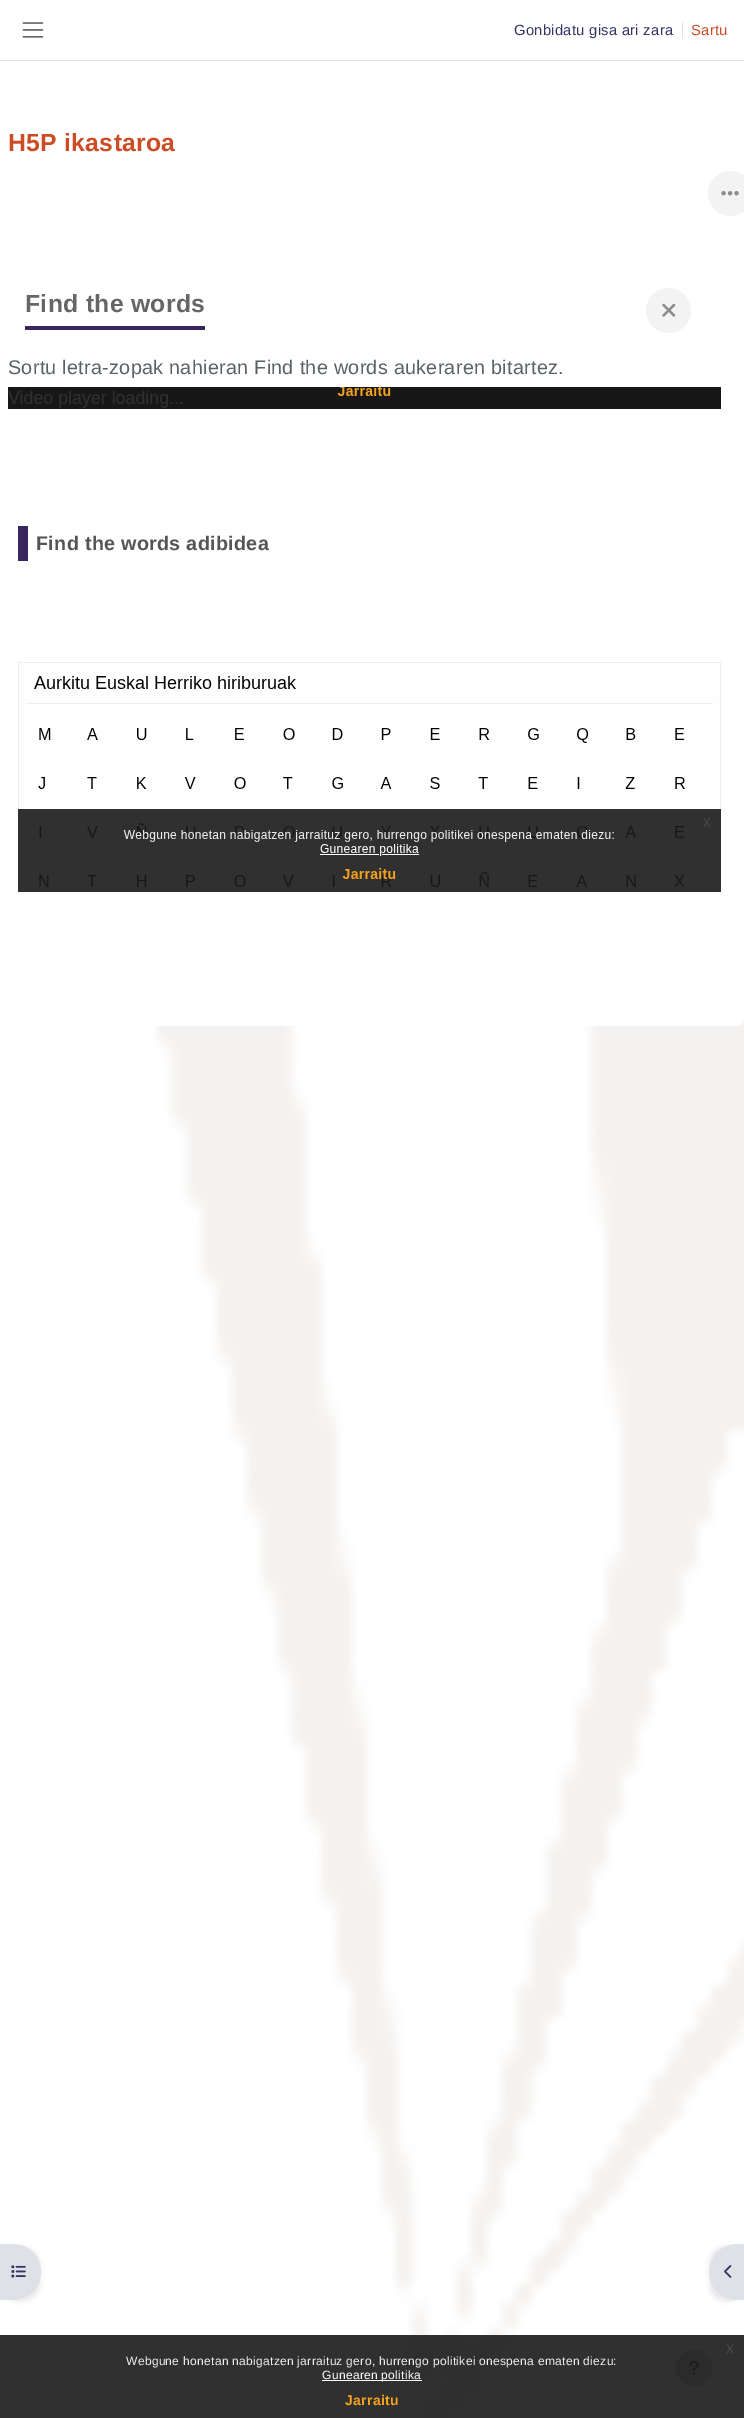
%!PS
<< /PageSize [744 2418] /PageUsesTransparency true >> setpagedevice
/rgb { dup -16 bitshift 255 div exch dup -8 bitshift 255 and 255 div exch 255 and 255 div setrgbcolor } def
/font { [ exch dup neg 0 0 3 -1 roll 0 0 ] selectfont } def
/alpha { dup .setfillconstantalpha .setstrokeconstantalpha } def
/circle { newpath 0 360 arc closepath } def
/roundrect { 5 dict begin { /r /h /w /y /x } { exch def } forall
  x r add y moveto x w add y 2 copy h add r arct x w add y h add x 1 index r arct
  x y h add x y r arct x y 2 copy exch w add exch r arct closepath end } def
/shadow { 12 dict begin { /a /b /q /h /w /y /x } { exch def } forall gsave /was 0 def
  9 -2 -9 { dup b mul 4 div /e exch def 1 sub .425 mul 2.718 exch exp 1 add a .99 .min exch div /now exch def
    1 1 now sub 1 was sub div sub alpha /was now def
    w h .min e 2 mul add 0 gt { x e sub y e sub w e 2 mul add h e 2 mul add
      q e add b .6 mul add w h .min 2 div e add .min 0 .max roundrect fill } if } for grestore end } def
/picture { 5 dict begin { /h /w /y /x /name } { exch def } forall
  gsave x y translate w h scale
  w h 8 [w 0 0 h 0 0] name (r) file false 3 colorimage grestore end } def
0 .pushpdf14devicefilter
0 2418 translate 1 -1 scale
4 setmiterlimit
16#FFFFFF rgb
0 0 744 2418 rectfill
(pic1.raw) 153 1018 591 1400 picture
16#DEE2E6 rgb
0 60 744 1 rectfill
(pic2.raw) 22 22 22 16 picture
/LiberationSans-Regular 14.75 font
16#333366 rgb
514 35 moveto 0.3 0 (Gonbidatu gisa ari zara) ashow
16#DEE2E6 rgb
682 22 1 16 rectfill
16#CC4C25 rgb
691 35 moveto 0.3 0 (Sartu) ashow
16#FFFFFF rgb
0 84 744 942 8 roundrect fill
/LiberationSans-Bold 24.75 font
16#CC4C25 rgb
8 151 moveto 0.3 0 (H5P ikastaroa) ashow
16#F3F3F3 rgb
730.5 193.5 22.5 circle fill
(pic3.raw) 721 191 18 5 picture
16#666666 rgb
25 312 moveto 0.3 0 (Find the words) ashow
16#38275F rgb
25 326 180 4 rectfill
16#F3F3F3 rgb
668.5 310.5 22.5 circle fill
(pic4.raw) 662 303 14 14 picture
/LiberationSans-Regular 19.75 font
16#5A6167 rgb
8 374 moveto 0.3 0 (Sortu letra-zopak nahieran Find the words aukeraren bitartez.) ashow
(pic5.raw) 8 387 713 22 picture
16#38275F rgb
18 526 10 35 rectfill
/LiberationSans-Bold 19.75 font
16#555555 rgb
36 550 moveto 0.3 0 (Find the words adibidea) ashow
(pic6.raw) 18 662 703 230 picture
16#000000 rgb
0 2246 41 56 28 2 0.07 shadow
16#DEE2E6 rgb
0 2244 moveto 13 2244 lineto 28.5 2244 41 2256.5 41 2272 curveto 41 2287.5 28.5 2300 13 2300 curveto 0 2300 lineto closepath fill
(pic7.raw) 11 2265 15 13 picture
16#000000 rgb
709 2246 35 56 28 2 0.07 shadow
16#DEE2E6 rgb
737 2244 moveto 744 2244 lineto 744 2300 lineto 737 2300 lineto 721.5 2300 709 2287.5 709 2272 curveto 709 2256.5 721.5 2244 737 2244 curveto closepath fill
(pic8.raw) 724 2265 8 13 picture
16#CED4DA rgb
694 2368 18 circle fill
(pic9.raw) 689 2361 10 14 picture
0.9 alpha
16#191919 rgb
0 2335 744 83 rectfill
/LiberationSans-Regular 16 font
1 alpha
16#474747 rgb
726 2353 moveto 0.3 0 (x) ashow
/LiberationSans-Regular 12 font
16#EFEFEF rgb
126 2365 moveto 0.3 0 (Webgune honetan nabigatzen jarraituz gero, hurrengo politikei onespena ematen diezu:) ashow
16#FFFFFF rgb
322 2380 100 1 rectfill
322 2379 moveto 0.3 0 (Gunearen politika) ashow
/LiberationSans-Bold 14 font
16#F6A21D rgb
345 2405 moveto 0.3 0 (Jarraitu) ashow
.poppdf14devicefilter showpage
